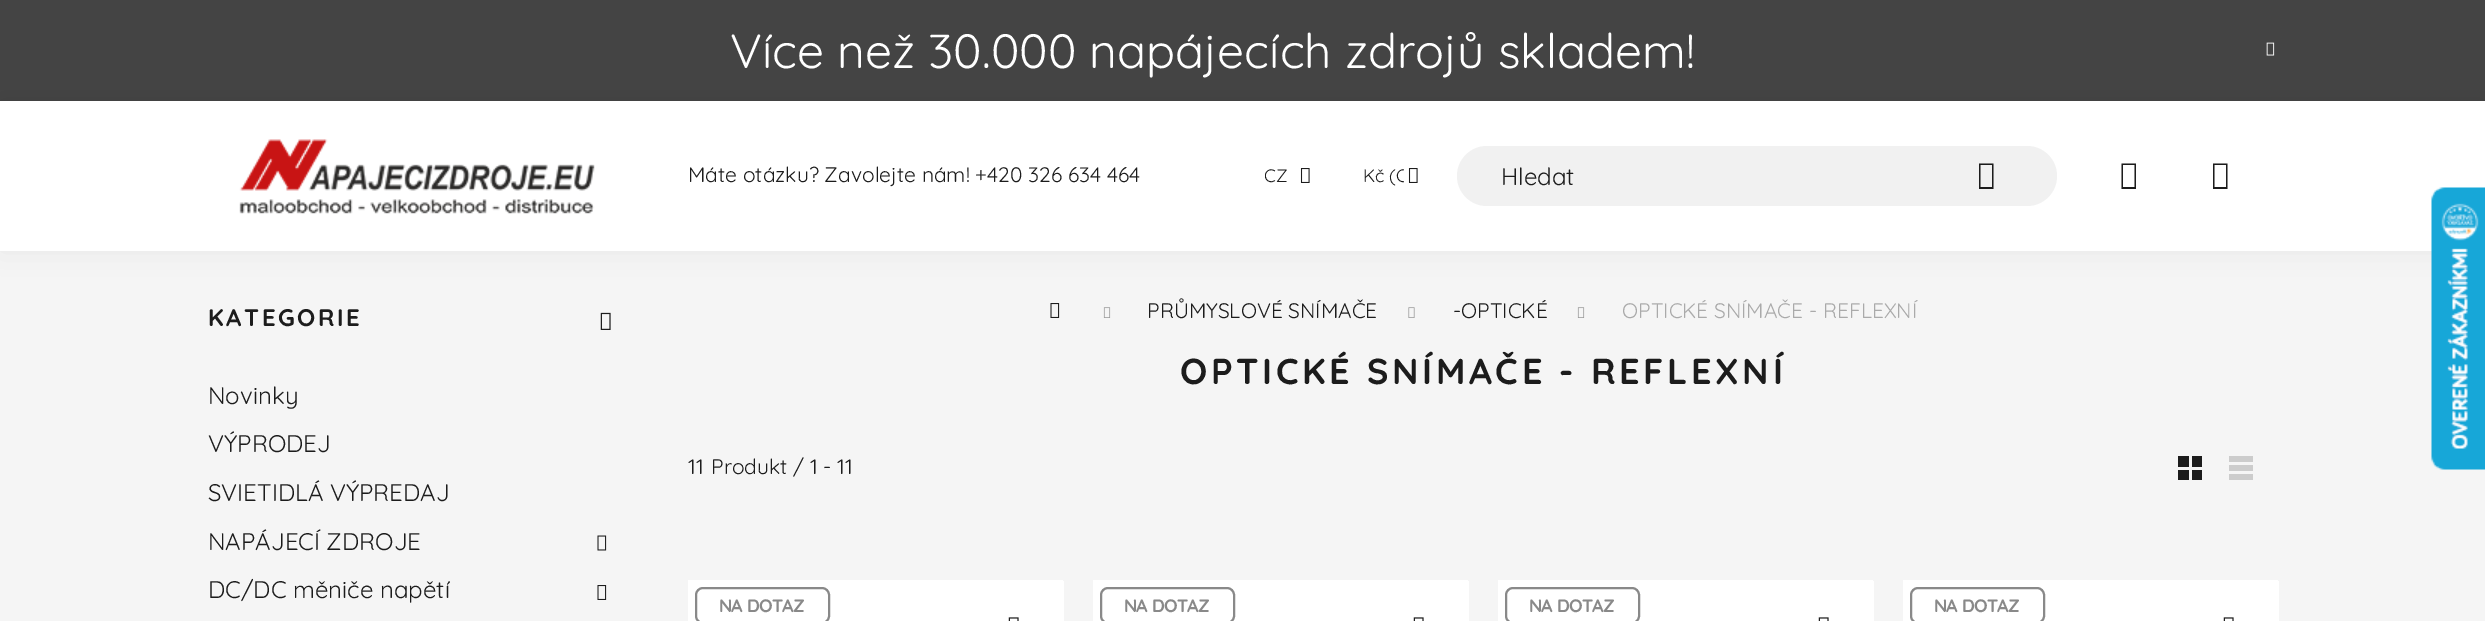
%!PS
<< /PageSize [2485 621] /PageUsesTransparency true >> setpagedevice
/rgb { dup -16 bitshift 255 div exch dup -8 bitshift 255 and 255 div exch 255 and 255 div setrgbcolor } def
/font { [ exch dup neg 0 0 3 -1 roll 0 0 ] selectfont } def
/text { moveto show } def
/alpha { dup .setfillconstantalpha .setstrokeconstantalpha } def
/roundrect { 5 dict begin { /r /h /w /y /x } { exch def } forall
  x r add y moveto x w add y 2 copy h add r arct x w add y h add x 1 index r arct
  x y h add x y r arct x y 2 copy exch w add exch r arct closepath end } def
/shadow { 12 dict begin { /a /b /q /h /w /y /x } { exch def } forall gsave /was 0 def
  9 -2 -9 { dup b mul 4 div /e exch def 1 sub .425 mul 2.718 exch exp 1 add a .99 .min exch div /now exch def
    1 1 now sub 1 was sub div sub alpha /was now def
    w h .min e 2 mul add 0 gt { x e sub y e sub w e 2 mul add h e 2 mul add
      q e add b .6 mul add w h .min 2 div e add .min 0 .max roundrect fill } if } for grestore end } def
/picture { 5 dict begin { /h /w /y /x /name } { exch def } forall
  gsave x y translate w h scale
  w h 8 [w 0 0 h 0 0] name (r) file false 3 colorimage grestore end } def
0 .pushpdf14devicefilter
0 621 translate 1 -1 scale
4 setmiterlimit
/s1 { /Quicksand-Regular 48 font 16#FFFFFF rgb } def
/s2 { /Quicksand-Regular 21 font 16#1C1C1C rgb } def
/s3 { /Quicksand-Regular 18 font 16#1C1C1C rgb } def
/s4 { /Quicksand-Regular 24 font 16#1C1C1C rgb } def
/s5 { /Quicksand-Regular 21 font 16#AAAAAA rgb } def
16#F5F5F5 rgb
0 0 2485 621 rectfill
16#444444 rgb
0 0 2485 101 rectfill
s1
(Více než 30.000 napájecích zdrojů skladem!) 730 68 text
(pic1.raw) 2266 42 9 14 picture
16#000000 rgb
0 101 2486 150 0 15 0.05 shadow
16#FFFFFF rgb
0 101 2485 150 rectfill
(pic2.raw) 239 139 356 75 picture
s2
(Máte otázku? Zavolejte nám! +420 326 634 464) 688 182 text
gsave
1265 162 31 27 rectclip
s3
(CZ) 1264 182 text
grestore
(pic3.raw) 1300 168 10 15 picture
gsave
1364 162 40 27 rectclip
s3
(Kč \(C) 1363 182 text
grestore
(pic3.raw) 1408 168 10 15 picture
16#F1F1F1 rgb
1457 146 600 60 30 roundrect fill
s4
(Hledat) 1501 185 text
1979 189 moveto 1979 163.5 lineto 1993.5 163.5 lineto 1993.5 189 lineto closepath 1980.5 187 moveto 1992 187 lineto 1992 165 lineto 1980.5 165 lineto closepath fill
2121.5 189 moveto 2121.5 163.5 lineto 2136 163.5 lineto 2136 189 lineto closepath 2123 187 moveto 2134.5 187 lineto 2134.5 165 lineto 2123 165 lineto closepath fill
2213 189 moveto 2213 163.5 lineto 2227.5 163.5 lineto 2227.5 189 lineto closepath 2214.5 187 moveto 2226 187 lineto 2226 165 lineto 2214.5 165 lineto closepath fill
/Quicksand-Bold 24 font
208 326 moveto 2.5 0 (KATEGORIE) ashow
(pic4.raw) 600 312 11 18 picture
s4
(Novinky) 208 404 text
(VÝPRODEJ) 208 452 text
(SVIETIDLÁ VÝPREDAJ) 208 501 text
(NAPÁJECÍ ZDROJE) 208 550 text
(pic5.raw) 597 535 10 16 picture
(DC/DC měniče napětí) 208 598 text
(pic6.raw) 597 585 10 15 picture
(pic6.raw) 1050 303 10 15 picture
(pic7.raw) 1103 307 8 11 picture
s2
(PRŮMYSLOVÉ SNÍMAČE) 1147 318 text
(pic8.raw) 1408 307 7 11 picture
(-OPTICKÉ) 1453 318 text
(pic7.raw) 1577 307 8 11 picture
s5
(OPTICKÉ SNÍMAČE - REFLEXNÍ) 1622 318 text
/Quicksand-Bold 36 font
16#1C1C1C rgb
1180 384 moveto 3.6 0 (OPTICKÉ SNÍMAČE - REFLEXNÍ) ashow
s2
(11) 688 474 text
(Produkt / 1 - 11) 711 474 text
2178 456 11 11 rectfill
2192 456 10 11 rectfill
2178 470 11 10 rectfill
2192 470 10 10 rectfill
16#CCCCCC rgb
2229 456 24 6 rectfill
2229 465 24 6 rectfill
2229 474 24 6 rectfill
16#FFFFFF rgb
1063 581 1 40 rectfill
688 580 375 41 rectfill
16#898989 rgb
2 setlinewidth
696 588 133 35 7 roundrect stroke
/Quicksand-Bold 18 font
719 612 moveto -0.75 0 (NA DOTAZ) ashow
(pic9.raw) 1008 617 11 4 picture
16#FFFFFF rgb
1468 581 1 40 rectfill
1093 580 375 41 rectfill
16#898989 rgb
1101 588 133 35 7 roundrect stroke
1124 612 moveto -0.75 0 (NA DOTAZ) ashow
(pic9.raw) 1413 617 11 4 picture
16#FFFFFF rgb
1873 581 1 40 rectfill
1498 580 375 41 rectfill
16#898989 rgb
1506 588 133 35 7 roundrect stroke
1529 612 moveto -0.75 0 (NA DOTAZ) ashow
(pic9.raw) 1818 617 11 4 picture
16#FFFFFF rgb
2278 581 1 40 rectfill
1903 580 375 41 rectfill
16#898989 rgb
1911 588 133 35 7 roundrect stroke
1934 612 moveto -0.75 0 (NA DOTAZ) ashow
(pic9.raw) 2223 617 11 4 picture
(pic10.raw) 2431 187 54 283 picture
.poppdf14devicefilter showpage
